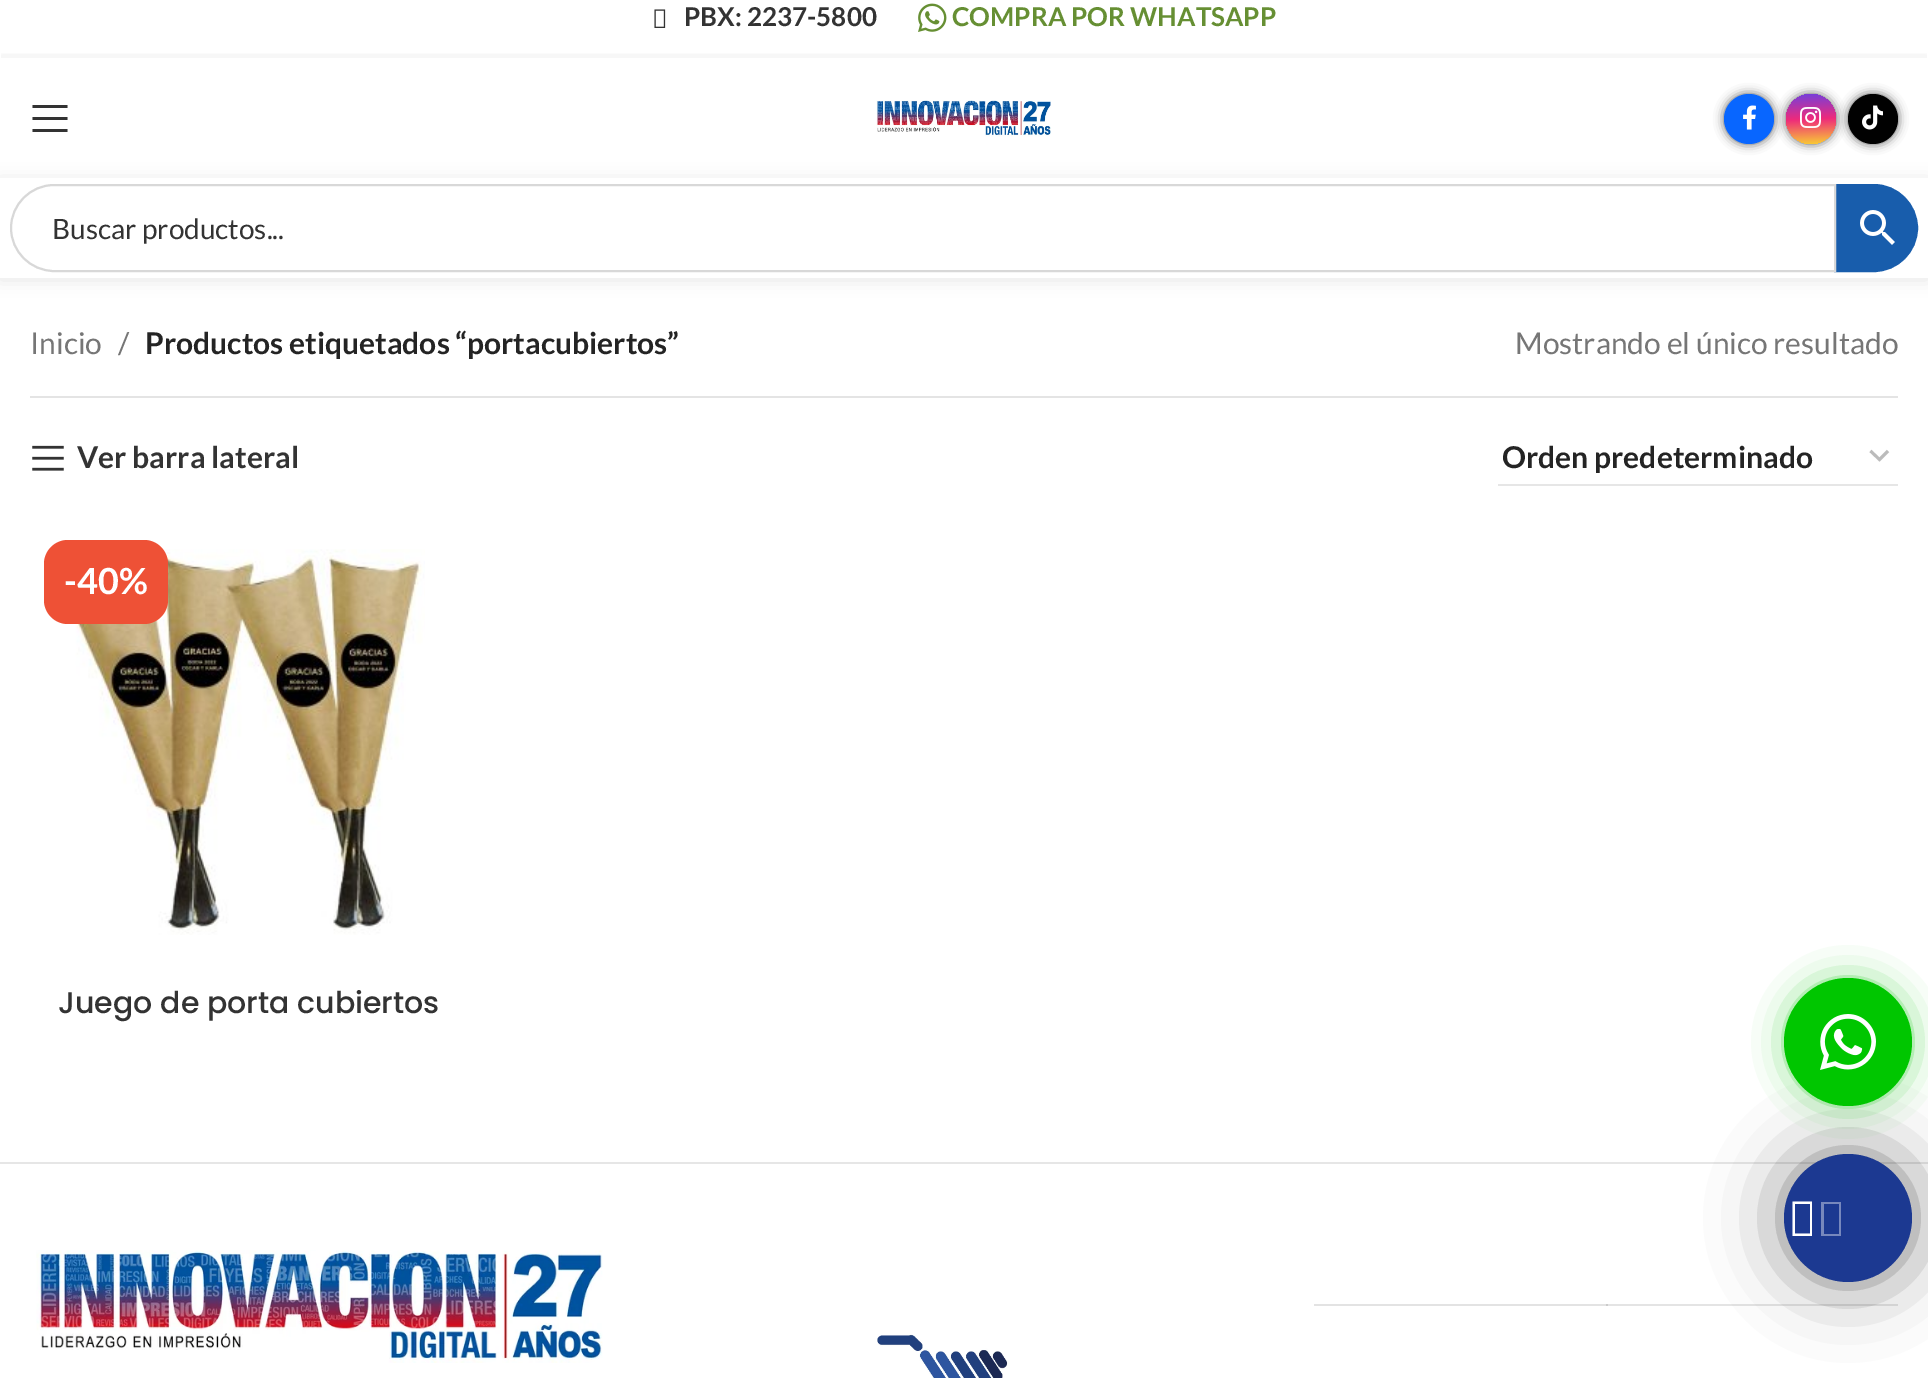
%!PS
<< /PageSize [1928 1378] /PageUsesTransparency true >> setpagedevice
/rgb { dup -16 bitshift 255 div exch dup -8 bitshift 255 and 255 div exch 255 and 255 div setrgbcolor } def
/font { [ exch dup neg 0 0 3 -1 roll 0 0 ] selectfont } def
/text { moveto show } def
/alpha { dup .setfillconstantalpha .setstrokeconstantalpha } def
/circle { newpath 0 360 arc closepath } def
/roundrect { 5 dict begin { /r /h /w /y /x } { exch def } forall
  x r add y moveto x w add y 2 copy h add r arct x w add y h add x 1 index r arct
  x y h add x y r arct x y 2 copy exch w add exch r arct closepath end } def
/shadow { 12 dict begin { /a /b /q /h /w /y /x } { exch def } forall gsave /was 0 def
  9 -2 -9 { dup b mul 4 div /e exch def 1 sub .425 mul 2.718 exch exp 1 add a .99 .min exch div /now exch def
    1 1 now sub 1 was sub div sub alpha /was now def
    w h .min e 2 mul add 0 gt { x e sub y e sub w e 2 mul add h e 2 mul add
      q e add b .6 mul add w h .min 2 div e add .min 0 .max roundrect fill } if } for grestore end } def
/picture { 5 dict begin { /h /w /y /x /name } { exch def } forall
  gsave x y translate w h scale
  w h 8 [w 0 0 h 0 0] name (r) file false 3 colorimage grestore end } def
0 .pushpdf14devicefilter
0 1378 translate 1 -1 scale
4 setmiterlimit
/s1 { /Lato-Bold 26 font 16#333333 rgb } def
/s2 { /Lato-Bold 26 font 16#668F33 rgb } def
/s3 { /Lato-Regular 28 font 16#333333 rgb } def
/s4 { /Lato-Regular 30 font 16#767676 rgb } def
/s5 { /Lato-Bold 30 font 16#242424 rgb } def
/s6 { /Lato-Bold 30 font 16#333333 rgb } def
/s7 { /Lato-Bold 36 font 16#FFFFFF rgb } def
/s8 { /Poppins-Medium 30 font 16#333333 rgb } def
16#FFFFFF rgb
0 0 1928 1378 rectfill
16#E3E3E3 rgb
1314 1304 294 2 rectfill
(pic1.raw) 654 9 12 19 picture
s1
(PBX: 2237-5800) 684 26 text
(pic2.raw) 918 3 29 29 picture
s2
(COMPRA POR WHATSAPP) 952 26 text
gsave
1 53 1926 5 rectclip
16#000000 rgb
0 60 1928 120 0 8 0.1 shadow
grestore
16#333333 rgb
32.5 108 moveto 67.5 108 lineto 67.5 105 lineto 32.5 105 lineto closepath 32.5 120 moveto 67.5 120 lineto 67.5 117 lineto 32.5 117 lineto closepath 32.5 132 moveto 67.5 132 lineto 67.5 129 lineto 32.5 129 lineto closepath fill
(pic3.raw) 876 100 175 37 picture
16#5B5B5B rgb
1724 94 50 50 25 5 1 shadow
16#0866FF rgb
1749 119 25 circle fill
(pic4.raw) 1743 105 13 25 picture
16#5B5B5B rgb
1786 94 50 50 25 5 1 shadow
gsave 1811 119 25 circle clip newpath
<< /ShadingType 2 /ColorSpace /DeviceRGB /Coords [1812 145 1810 93] /Extend [true true] /Function << /FunctionType 3 /Domain [0 1] /Functions [<< /FunctionType 2 /Domain [0 1] /C0 [0.976 0.808 0.204] /C1 [0.933 0.165 0.482] /N 1 >> << /FunctionType 2 /Domain [0 1] /C0 [0.933 0.165 0.482] /C1 [0.455 0.251 0.863] /N 1 >>] /Bounds [0.5] /Encode [0 1 0 1] >> >> shfill grestore
(pic5.raw) 1800 107 21 21 picture
1848 94 50 50 25 5 1 shadow
16#010101 rgb
1873 119 25 circle fill
(pic6.raw) 1862 105 21 25 picture
16#000000 rgb
0 180 1928 100 0 8 0.1 shadow
16#FFFFFF rgb
0 178 1928 100 rectfill
16#185DAC rgb
1835 185 moveto 1874 185 lineto 1897.5 185 1917 204.5 1917 228 curveto 1917 251.5 1897.5 271 1874 271 curveto 1835 271 lineto closepath gsave fill grestore
2 setlinewidth
stroke
16#FFFFFF rgb
54 185 moveto 1835 185 lineto 1835 271 lineto 54 271 lineto 30.5 271 11 251.5 11 228 curveto 11 204.5 30.5 185 54 185 curveto closepath gsave fill grestore
16#D8D8D8 rgb
stroke
s3
(Buscar productos...) 52 239 text
(pic7.raw) 1860 210 35 35 picture
16#E4E4E4 rgb
30 396 1868 2 rectfill
s4
(Inicio) 30 354 text
(/) 118 354 text
s5
(Productos etiquetados “portacubiertos”) 145 354 text
s4
(Mostrando el único resultado) 1515 354 text
(pic8.raw) 32 445 32 26 picture
s6
(Ver barra lateral) 77 468 text
16#BBBBBB rgb
2.9 setlinewidth
1870.5 451 moveto 1879.5 459.5 lineto 1888 451 lineto stroke
16#E6E6E6 rgb
1498 484 400 2 rectfill
s5
(Orden predeterminado) 1502 468 text
(pic9.raw) 53 549 372 386 picture
16#EE5136 rgb
44 540 124 84 24 roundrect fill
s7
(-40%) 64 594 text
s8
(Juego de porta cubiertos) 58 1013 text
16#E6E6E6 rgb
0 1162 1928 2 rectfill
(pic10.raw) 36 1250 567 113 picture
16#E4E4E4 rgb
1606 1304 292 2 rectfill
16#CBCBCB rgb
1606 1304 2 2 rectfill
(pic11.raw) 877 1334 132 44 picture
16#000000 rgb
1784 1154 128 128 64 36 0.5 shadow
16#1C3991 rgb
1848 1218 64 circle fill
16#00C600 rgb
1796 990 104 104 52 20 1 shadow
1848 1042 64 circle fill
(pic12.raw) 1820 1014 56 56 picture
16#FFFFFF rgb
1792.5 1236 moveto 1792.5 1201.5 lineto 1812 1201.5 lineto 1812 1236 lineto closepath 1795 1233.5 moveto 1810 1233.5 lineto 1810 1204 lineto 1795 1204 lineto closepath fill
0.4 alpha
1793 1236 moveto 1793 1202 lineto 1812 1202 lineto 1812 1236 lineto closepath 1795 1234 moveto 1810 1234 lineto 1810 1204 lineto 1795 1204 lineto closepath 1821 1236 moveto 1821 1202 lineto 1841 1202 lineto 1841 1236 lineto closepath 1824 1234 moveto 1839 1234 lineto 1839 1204 lineto 1824 1204 lineto closepath fill
.poppdf14devicefilter showpage
